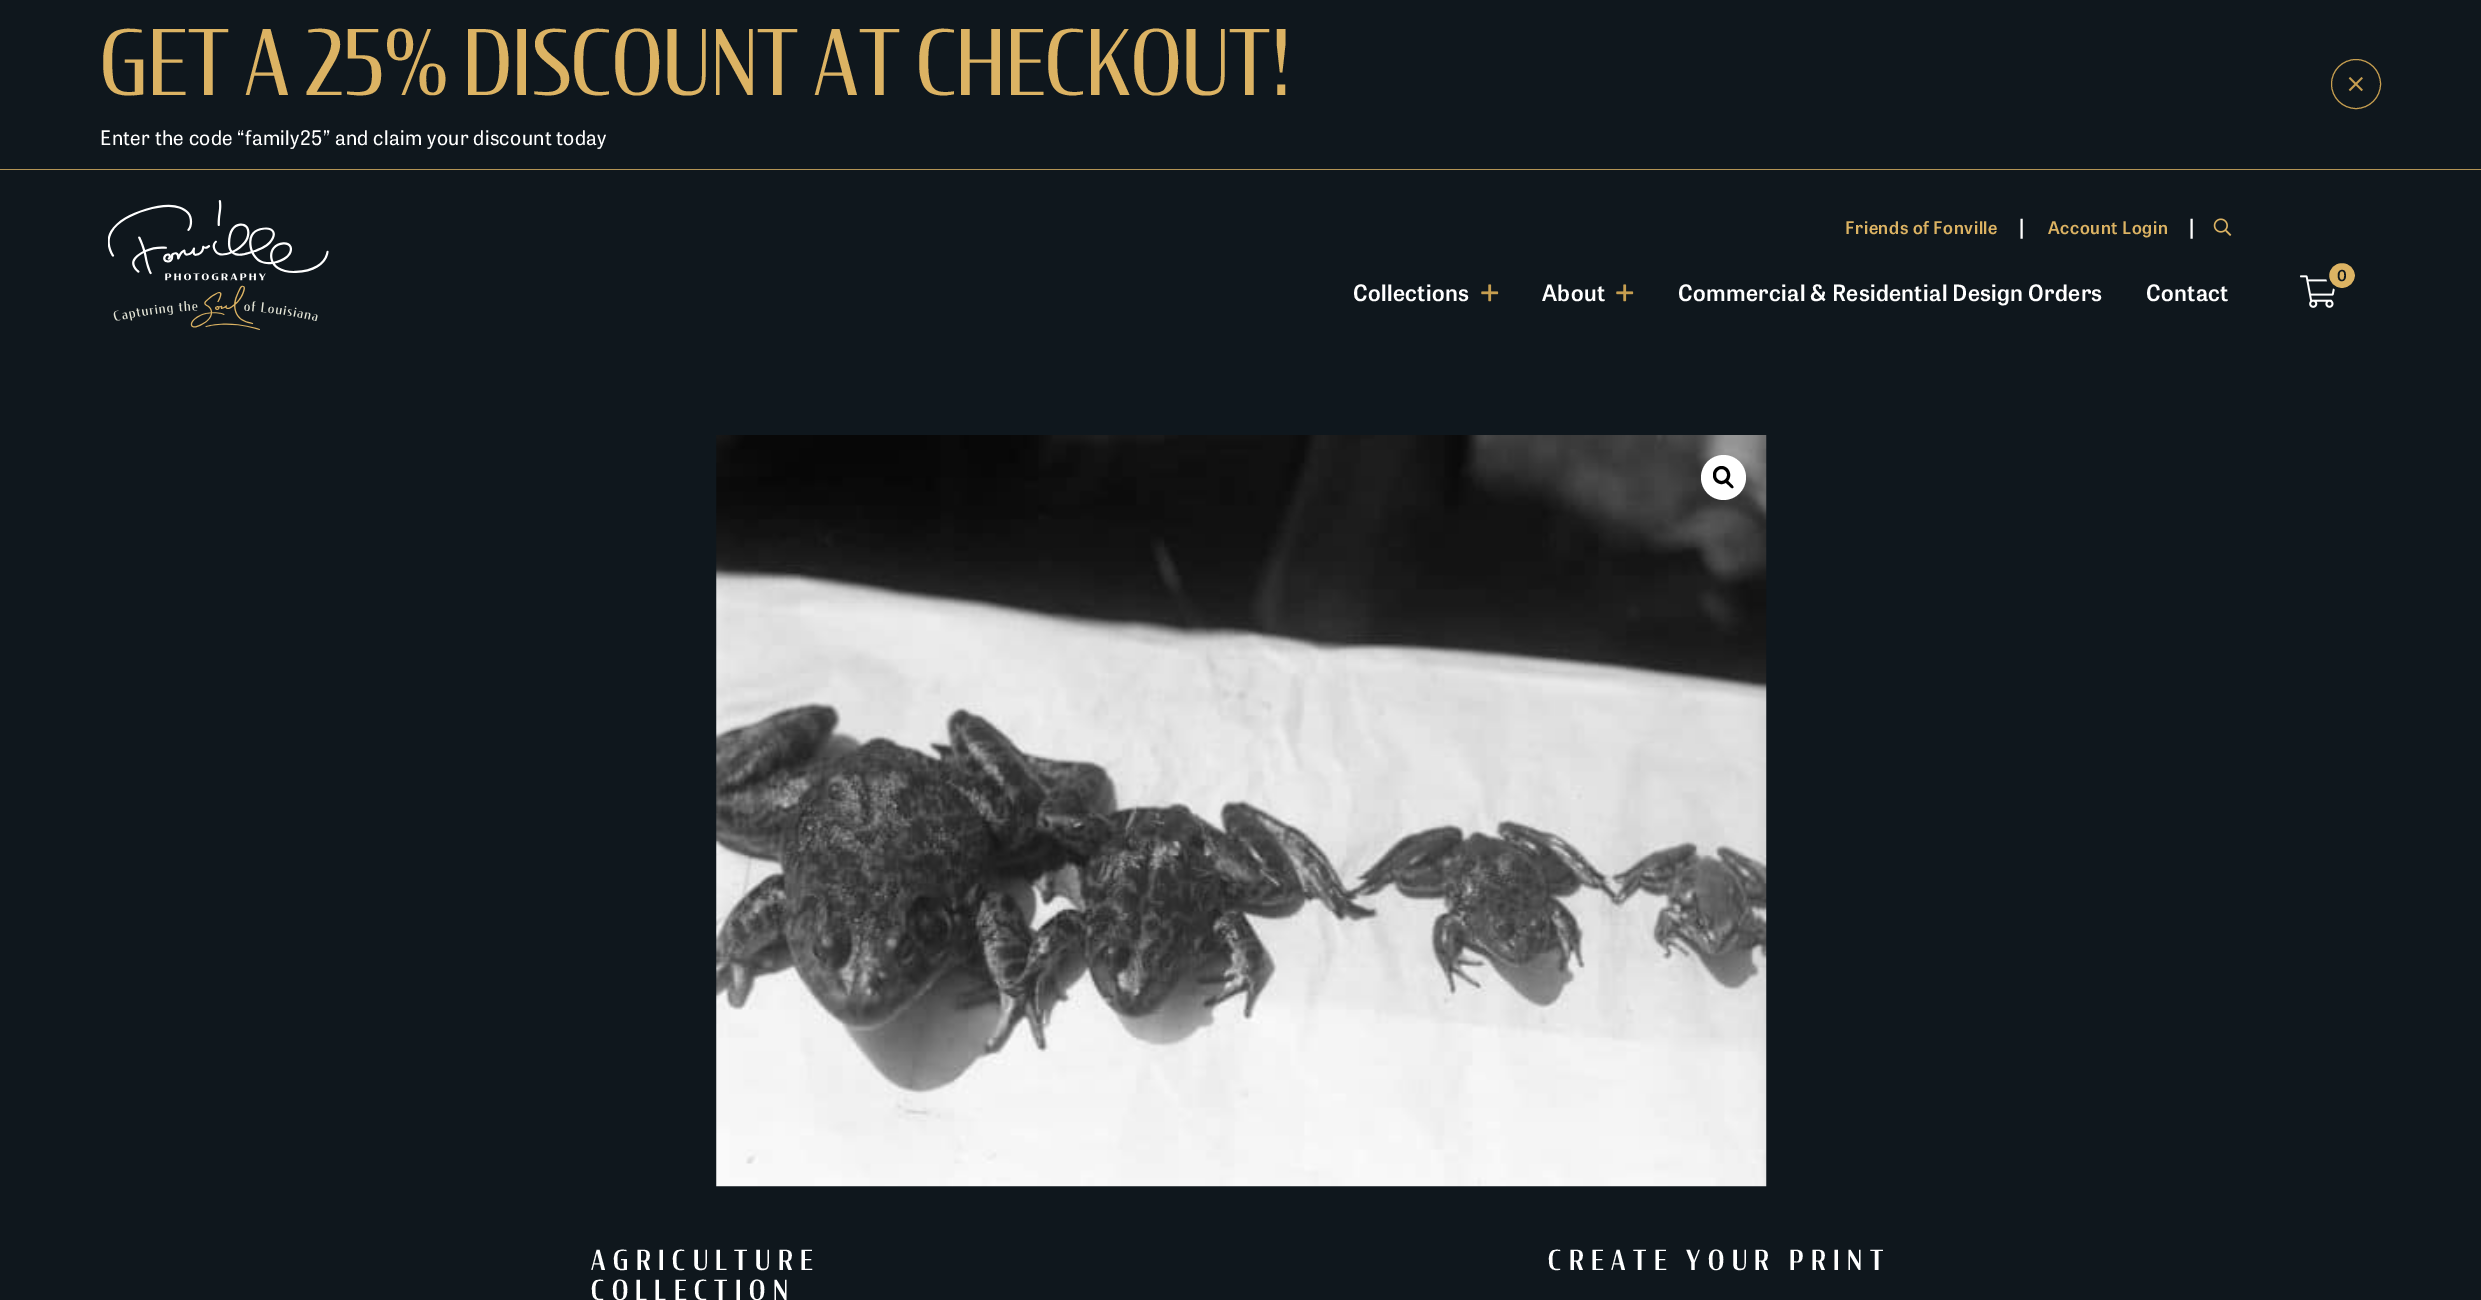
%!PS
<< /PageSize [2481 1300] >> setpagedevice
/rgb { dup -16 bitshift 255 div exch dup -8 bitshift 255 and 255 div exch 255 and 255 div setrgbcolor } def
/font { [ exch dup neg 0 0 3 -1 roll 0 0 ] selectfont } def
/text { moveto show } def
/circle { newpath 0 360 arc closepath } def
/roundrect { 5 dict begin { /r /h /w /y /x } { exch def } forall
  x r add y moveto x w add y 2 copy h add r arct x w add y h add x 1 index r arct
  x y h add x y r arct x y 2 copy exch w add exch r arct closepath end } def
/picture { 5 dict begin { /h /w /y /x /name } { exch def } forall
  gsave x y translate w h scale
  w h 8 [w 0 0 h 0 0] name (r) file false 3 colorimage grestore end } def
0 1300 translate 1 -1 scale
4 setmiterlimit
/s1 { /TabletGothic-SemiBold 20 font 16#FFFFFF rgb } def
16#0F171D rgb
0 0 2481 1300 rectfill
16#B39455 rgb
0 169 2481 1 rectfill
/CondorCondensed-Regular 89.4 font
16#DCB363 rgb
100 95 moveto 0.38 0 (GET A 25% DISCOUNT AT CHECKOUT!) ashow
/TabletGothic-Regular 20 font
16#FFFFFF rgb
100 145 moveto 0.38 0 (Enter the code “family25” and claim your discount today) ashow
16#C69E50 rgb
2356 84 24.5 circle stroke
(pic1.raw) 2348 77 15 15 picture
(pic2.raw) 108 200 221 130 picture
/TabletGothic-SemiBold 17.5 font
16#DCB363 rgb
1845 234 moveto 0.6 0 (Friends of Fonville) ashow
s1
(|) 2019 234 text
/TabletGothic-SemiBold 17.5 font
16#DCB363 rgb
2048 234 moveto 0.6 0 (Account Login) ashow
s1
(|) 2189 234 text
(pic3.raw) 2213 218 19 18 picture
(pic4.raw) 2300 275 35 33 picture
16#DCB363 rgb
2327.5 261.5 29 28 14 roundrect gsave fill grestore
16#0F171D rgb
3 setlinewidth
stroke
/TabletGothic-SemiBold 15 font
2337 281 moveto 0.38 0 (0) ashow
/TabletGothic-SemiBold 22.5 font
16#FFFFFF rgb
1353 301 moveto 0.38 0 (Collections) ashow
(pic5.raw) 1481 284 18 18 picture
1542 301 moveto 0.38 0 (About) ashow
(pic5.raw) 1616 284 18 18 picture
1678 301 moveto 0.38 0 (Commercial & Residential Design Orders) ashow
2146 301 moveto 0.38 0 (Contact) ashow
(pic6.raw) 716 435 1051 752 picture
1723.5 477.5 22.5 circle fill
16#000000 rgb
1714.5 467.5 14 15 7 roundrect stroke
1726 480.5 moveto 1727.5 479.5 1729.5 482.5 1730.5 483.5 curveto 1731 484 1734.5 486.5 1733 488 curveto 1731.5 489 1729.5 486 1728.5 485 curveto 1727.5 484.5 1724.5 482 1726 480.5 curveto closepath fill
/CondorCondensed-Medium 27.5 font
16#FFFFFF rgb
591 1270 moveto 7.5 0 (AGRICULTURE) ashow
591 1300 moveto 7.5 0 (COLLECTION) ashow
1548 1270 moveto 7.5 0 (CREATE YOUR PRINT) ashow
showpage
